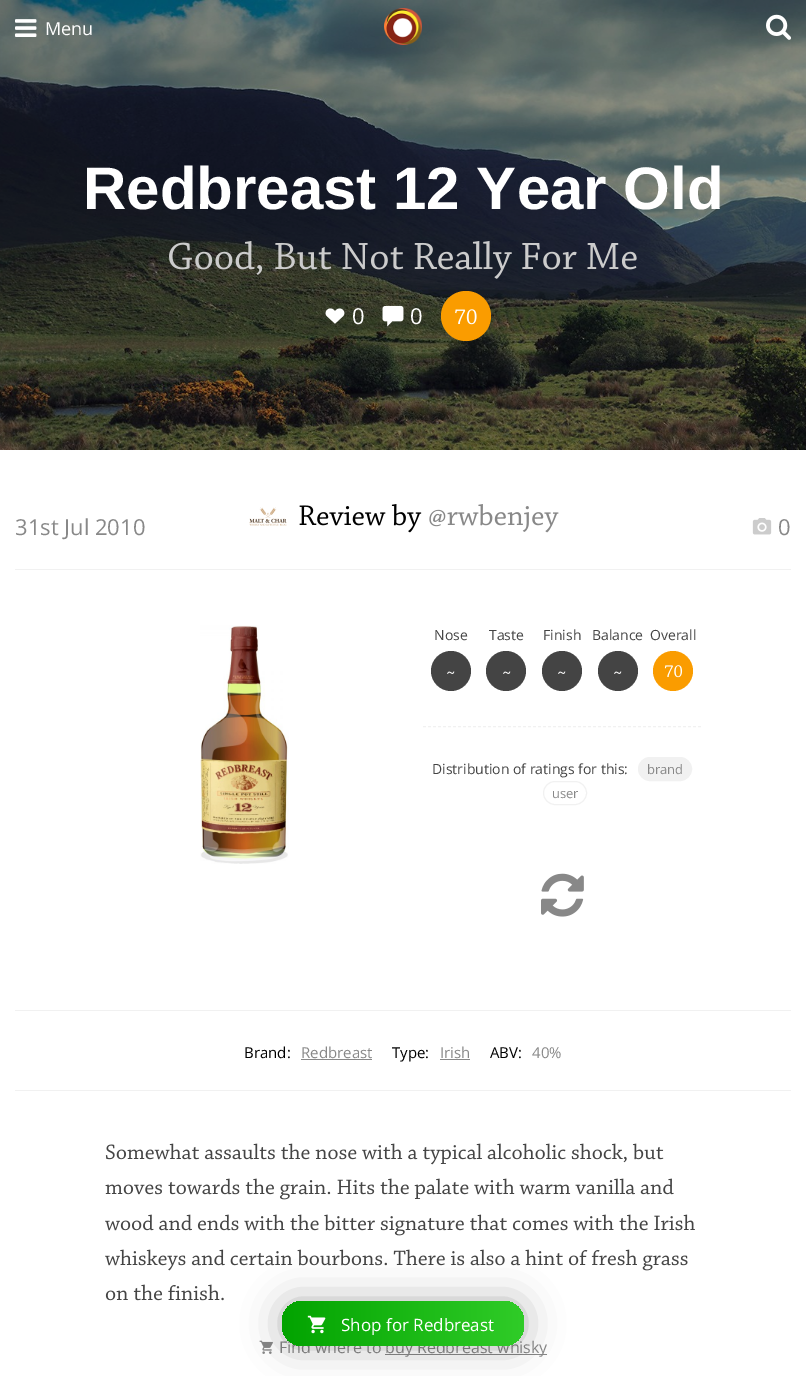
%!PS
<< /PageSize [806 1376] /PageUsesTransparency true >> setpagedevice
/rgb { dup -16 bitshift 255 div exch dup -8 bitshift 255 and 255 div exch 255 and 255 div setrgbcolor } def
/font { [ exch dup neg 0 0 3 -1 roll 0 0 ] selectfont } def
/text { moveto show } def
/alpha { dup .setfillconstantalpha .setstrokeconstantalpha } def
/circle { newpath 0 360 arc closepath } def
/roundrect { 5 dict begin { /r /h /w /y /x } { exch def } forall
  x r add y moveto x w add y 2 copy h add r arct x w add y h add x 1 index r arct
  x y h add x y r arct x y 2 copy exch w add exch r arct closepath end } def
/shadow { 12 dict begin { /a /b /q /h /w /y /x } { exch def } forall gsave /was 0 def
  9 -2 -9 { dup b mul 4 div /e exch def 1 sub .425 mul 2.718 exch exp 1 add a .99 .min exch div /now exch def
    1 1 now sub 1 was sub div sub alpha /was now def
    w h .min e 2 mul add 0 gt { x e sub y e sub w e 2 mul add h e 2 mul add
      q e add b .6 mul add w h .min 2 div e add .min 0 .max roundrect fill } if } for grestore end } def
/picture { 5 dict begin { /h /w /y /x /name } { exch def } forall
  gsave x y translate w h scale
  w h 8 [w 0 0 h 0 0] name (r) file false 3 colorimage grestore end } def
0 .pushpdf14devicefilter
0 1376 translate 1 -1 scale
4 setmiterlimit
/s1 { /OpenSans-Regular 18 font 16#FFFFFF rgb } def
/s2 { /LiberationSans-Bold 60 font 16#FFFFFF rgb } def
/s3 { /OpenSans-Regular 22 font 16#FFFFFF rgb } def
/s4 { /OpenSans-Regular 22 font 16#888888 rgb } def
/s5 { /OpenSans-Regular 14 font 16#444444 rgb } def
/s6 { /OpenSans-Regular 13 font 16#888888 rgb } def
/s7 { /OpenSans-Regular 15 font 16#000000 rgb } def
/s8 { /OpenSans-Regular 15 font 16#888888 rgb } def
/s9 { /OpenSans-Regular 16 font 16#888888 rgb } def
/s10 { /OpenSans-Regular 17 font 16#FFFFFF rgb } def
16#FFFFFF rgb
0 0 806 1376 rectfill
(pic4.raw) 0 0 806 450 picture
(pic1.raw) 15 19 22 18 picture
s1
(Menu) 45 35 text
(pic2.raw) 384 8 38 37 picture
(pic3.raw) 766 14 25 26 picture
s2
(Redbreast 12 Year Old) 83 209 text
(pic5.raw) 169 241 468 38 picture
(pic6.raw) 325 308 20 16 picture
s3
(0) 352 324 text
(pic7.raw) 382 305 22 22 picture
(0) 410 324 text
16#FA9C00 rgb
466 316 25 circle fill
(pic8.raw) 455 309 22 16 picture
(pic9.raw) 249 507 38 19 picture
(pic10.raw) 299 504 123 29 picture
(pic11.raw) 429 504 130 29 picture
s4
(31st Jul 2010) 15 535 text
(pic12.raw) 752 518 20 17 picture
(0) 778 535 text
16#F1F1F1 rgb
15 569 776 1 rectfill
(pic13.raw) 200 625 89 239 picture
s5
(Nose) 434 640 text
451 671 20 circle fill
(pic14.raw) 447 671 8 3 picture
(Taste) 489 640 text
506 671 20 circle fill
(pic14.raw) 503 671 8 3 picture
(Finish) 543 640 text
562 671 20 circle fill
(pic14.raw) 558 671 8 3 picture
(Balance) 592 640 text
618 671 20 circle fill
(pic14.raw) 614 671 8 3 picture
(Overall) 650 640 text
16#FA9C00 rgb
673 671 20 circle fill
(pic15.raw) 664 665 19 13 picture
16#F1F1F1 rgb
[3 2] 0 setdash
423 726.5 moveto 701 726.5 lineto stroke
s5
(Distribution of ratings for this:) 432 774 text
16#F1F1F1 rgb
638.5 757.5 53 23 11.5 roundrect gsave fill grestore
[] 0 setdash
stroke
s6
(brand) 647 774 text
16#F1F1F1 rgb
543.5 781.5 43 23 11.5 roundrect stroke
s6
(user) 552 798 text
(pic16.raw) 541 873 43 44 picture
16#F1F1F1 rgb
15 1010 776 1 rectfill
s7
(Brand:) 244 1058 text
s8
(Redbreast) 301 1058 text
301 1059 71 1 rectfill
s7
(Type:) 392 1058 text
s8
(Irish) 440 1058 text
440 1059 30 1 rectfill
s7
(ABV:) 490 1058 text
s8
(40%) 532 1058 text
16#F1F1F1 rgb
15 1090 776 1 rectfill
(pic17.raw) 105 1143 559 22 picture
(pic18.raw) 105 1178 569 22 picture
(pic19.raw) 105 1214 590 22 picture
(pic20.raw) 105 1249 583 22 picture
(pic21.raw) 105 1284 119 17 picture
(pic22.raw) 259 1340 14 14 picture
s9
(Find where to) 279 1353 text
385 1354 162 1 rectfill
(buy Redbreast whisky) 385 1353 text
16#000000 rgb
282 1301 242 45 20 19 0.3 shadow
gsave 282 1301 242 45 20 roundrect clip newpath
<< /ShadingType 2 /ColorSpace /DeviceRGB /Coords [282 1324 524 1324] /Extend [true true] /Function << /FunctionType 2 /Domain [0 1] /C0 [0.008 0.639 0] /C1 [0.188 0.8 0.157] /N 1 >> >> shfill grestore
(pic23.raw) 307 1315 19 19 picture
s10
(Shop for Redbreast) 341 1331 text
.poppdf14devicefilter showpage
